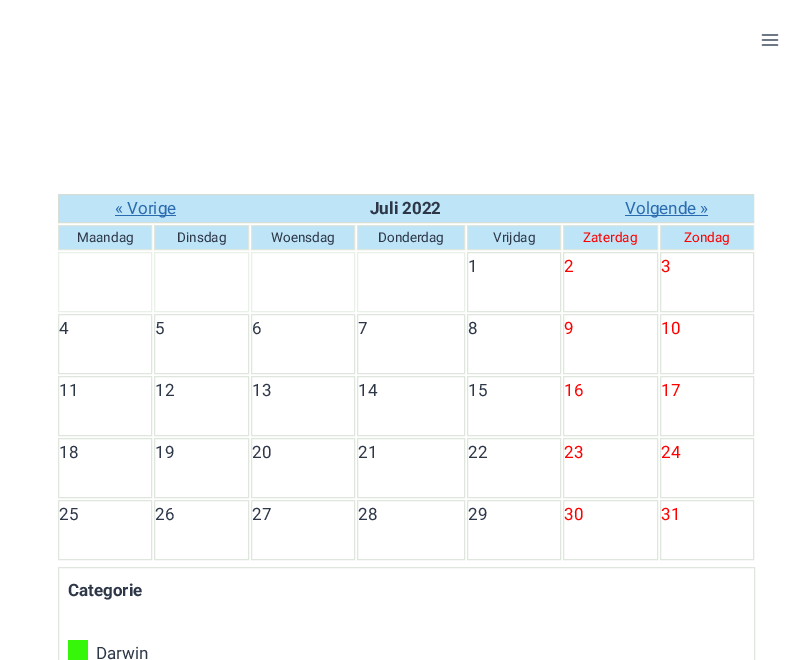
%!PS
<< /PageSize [812 660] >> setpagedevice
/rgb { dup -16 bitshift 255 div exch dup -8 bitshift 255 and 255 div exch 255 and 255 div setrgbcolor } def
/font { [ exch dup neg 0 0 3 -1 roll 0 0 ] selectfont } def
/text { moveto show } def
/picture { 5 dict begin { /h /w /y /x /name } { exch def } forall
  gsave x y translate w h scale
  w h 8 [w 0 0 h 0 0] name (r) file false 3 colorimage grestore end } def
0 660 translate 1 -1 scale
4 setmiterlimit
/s1 { /Roboto-Regular 17 font 16#2B6CB0 rgb } def
/s2 { /Roboto-Bold 17 font 16#2D3748 rgb } def
/s3 { /Roboto-Regular 13.5 font 16#2D3748 rgb } def
/s4 { /Roboto-Regular 13.5 font 16#FF0000 rgb } def
/s5 { /Roboto-Regular 17 font 16#2D3748 rgb } def
/s6 { /Roboto-Regular 17 font 16#FF0000 rgb } def
16#FFFFFF rgb
0 0 812 660 rectfill
(pic1.raw) 761 34 18 12 picture
16#BDE4F7 rgb
58.5 194.5 moveto 753.5 194.5 lineto 753.5 222.5 lineto 58.5 222.5 lineto closepath gsave fill grestore
16#D6DED5 rgb
stroke
16#2B6CB0 rgb
115 215 61 1 rectfill
s1
(« Vorige) 115 214 text
s2
(Juli 2022) 370 214 text
16#2B6CB0 rgb
625 215 83 1 rectfill
s1
(Volgende ») 625 214 text
16#BDE4F7 rgb
58.5 225.5 moveto 151.5 225.5 lineto 151.5 249.5 lineto 58.5 249.5 lineto closepath gsave fill grestore
16#DFE6DE rgb
stroke
s3
(Maandag) 77 242 text
16#BDE4F7 rgb
154.5 225.5 moveto 248.5 225.5 lineto 248.5 249.5 lineto 154.5 249.5 lineto closepath gsave fill grestore
16#DFE6DE rgb
stroke
s3
(Dinsdag) 177 242 text
16#BDE4F7 rgb
251.5 225.5 moveto 354.5 225.5 lineto 354.5 249.5 lineto 251.5 249.5 lineto closepath gsave fill grestore
16#DFE6DE rgb
stroke
s3
(Woensdag) 271 242 text
16#BDE4F7 rgb
357.5 225.5 moveto 464.5 225.5 lineto 464.5 249.5 lineto 357.5 249.5 lineto closepath gsave fill grestore
16#DFE6DE rgb
stroke
s3
(Donderdag) 378 242 text
16#BDE4F7 rgb
467.5 225.5 moveto 560.5 225.5 lineto 560.5 249.5 lineto 467.5 249.5 lineto closepath gsave fill grestore
16#DFE6DE rgb
stroke
s3
(Vrijdag) 493 242 text
16#BDE4F7 rgb
563.5 225.5 moveto 657.5 225.5 lineto 657.5 249.5 lineto 563.5 249.5 lineto closepath gsave fill grestore
16#DFE6DE rgb
stroke
s4
(Zaterdag) 583 242 text
16#BDE4F7 rgb
660.5 225.5 moveto 753.5 225.5 lineto 753.5 249.5 lineto 660.5 249.5 lineto closepath gsave fill grestore
16#DFE6DE rgb
stroke
s4
(Zondag) 684 242 text
16#E9F0E8 rgb
58.5 252.5 93 59 rectstroke
154.5 252.5 94 59 rectstroke
251.5 252.5 103 59 rectstroke
357.5 252.5 107 59 rectstroke
16#DFE6DE rgb
467.5 252.5 93 59 rectstroke
s5
(1) 468 272 text
16#DFE6DE rgb
563.5 252.5 94 59 rectstroke
s6
(2) 564 272 text
16#DFE6DE rgb
660.5 252.5 93 59 rectstroke
s6
(3) 661 272 text
16#DFE6DE rgb
58.5 314.5 93 59 rectstroke
s5
(4) 59 334 text
16#DFE6DE rgb
154.5 314.5 94 59 rectstroke
s5
(5) 155 334 text
16#DFE6DE rgb
251.5 314.5 103 59 rectstroke
s5
(6) 252 334 text
16#DFE6DE rgb
357.5 314.5 107 59 rectstroke
s5
(7) 358 334 text
16#DFE6DE rgb
467.5 314.5 93 59 rectstroke
s5
(8) 468 334 text
16#DFE6DE rgb
563.5 314.5 94 59 rectstroke
s6
(9) 564 334 text
16#DFE6DE rgb
660.5 314.5 93 59 rectstroke
s6
(10) 661 334 text
16#DFE6DE rgb
58.5 376.5 93 59 rectstroke
s5
(11) 59 396 text
16#DFE6DE rgb
154.5 376.5 94 59 rectstroke
s5
(12) 155 396 text
16#DFE6DE rgb
251.5 376.5 103 59 rectstroke
s5
(13) 252 396 text
16#DFE6DE rgb
357.5 376.5 107 59 rectstroke
s5
(14) 358 396 text
16#DFE6DE rgb
467.5 376.5 93 59 rectstroke
s5
(15) 468 396 text
16#DFE6DE rgb
563.5 376.5 94 59 rectstroke
s6
(16) 564 396 text
16#DFE6DE rgb
660.5 376.5 93 59 rectstroke
s6
(17) 661 396 text
16#DFE6DE rgb
58.5 438.5 93 59 rectstroke
s5
(18) 59 458 text
16#DFE6DE rgb
154.5 438.5 94 59 rectstroke
s5
(19) 155 458 text
16#DFE6DE rgb
251.5 438.5 103 59 rectstroke
s5
(20) 252 458 text
16#DFE6DE rgb
357.5 438.5 107 59 rectstroke
s5
(21) 358 458 text
16#DFE6DE rgb
467.5 438.5 93 59 rectstroke
s5
(22) 468 458 text
16#DFE6DE rgb
563.5 438.5 94 59 rectstroke
s6
(23) 564 458 text
16#DFE6DE rgb
660.5 438.5 93 59 rectstroke
s6
(24) 661 458 text
16#DFE6DE rgb
58.5 500.5 93 59 rectstroke
s5
(25) 59 520 text
16#DFE6DE rgb
154.5 500.5 94 59 rectstroke
s5
(26) 155 520 text
16#DFE6DE rgb
251.5 500.5 103 59 rectstroke
s5
(27) 252 520 text
16#DFE6DE rgb
357.5 500.5 107 59 rectstroke
s5
(28) 358 520 text
16#DFE6DE rgb
467.5 500.5 93 59 rectstroke
s5
(29) 468 520 text
16#DFE6DE rgb
563.5 500.5 94 59 rectstroke
s6
(30) 564 520 text
16#DFE6DE rgb
660.5 500.5 93 59 rectstroke
s6
(31) 661 520 text
16#DFE6DE rgb
58.5 567.5 696 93 rectstroke
s2
(Categorie) 68 596 text
16#36F709 rgb
68 640 20 20 rectfill
s5
(Darwin) 96 659 text
showpage
